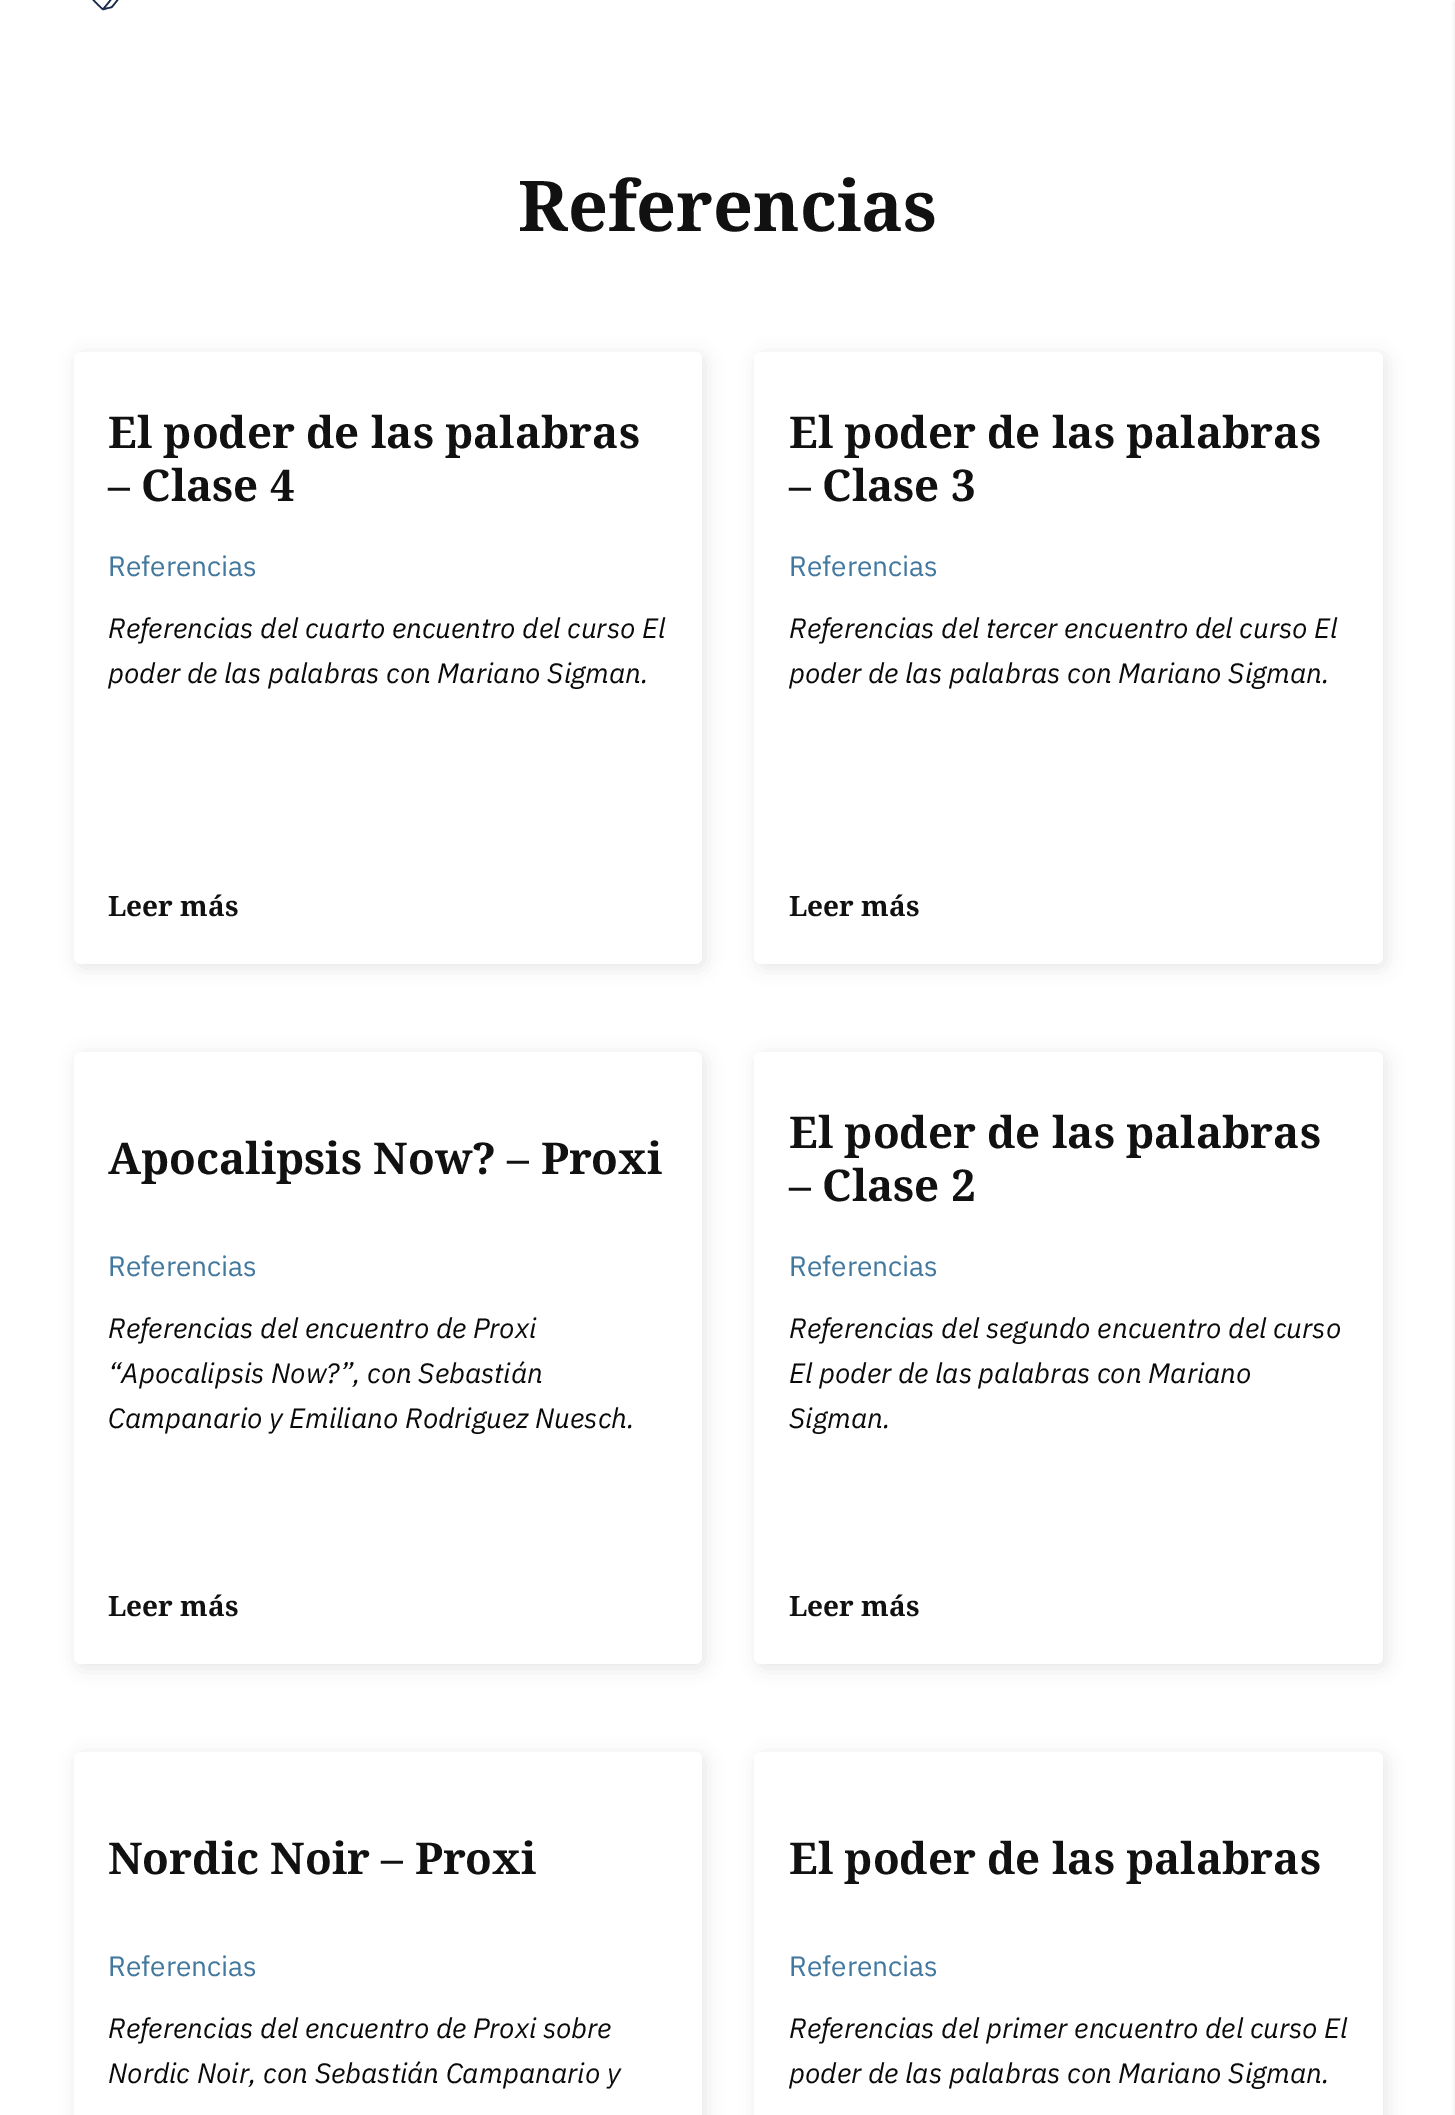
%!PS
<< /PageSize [1455 2115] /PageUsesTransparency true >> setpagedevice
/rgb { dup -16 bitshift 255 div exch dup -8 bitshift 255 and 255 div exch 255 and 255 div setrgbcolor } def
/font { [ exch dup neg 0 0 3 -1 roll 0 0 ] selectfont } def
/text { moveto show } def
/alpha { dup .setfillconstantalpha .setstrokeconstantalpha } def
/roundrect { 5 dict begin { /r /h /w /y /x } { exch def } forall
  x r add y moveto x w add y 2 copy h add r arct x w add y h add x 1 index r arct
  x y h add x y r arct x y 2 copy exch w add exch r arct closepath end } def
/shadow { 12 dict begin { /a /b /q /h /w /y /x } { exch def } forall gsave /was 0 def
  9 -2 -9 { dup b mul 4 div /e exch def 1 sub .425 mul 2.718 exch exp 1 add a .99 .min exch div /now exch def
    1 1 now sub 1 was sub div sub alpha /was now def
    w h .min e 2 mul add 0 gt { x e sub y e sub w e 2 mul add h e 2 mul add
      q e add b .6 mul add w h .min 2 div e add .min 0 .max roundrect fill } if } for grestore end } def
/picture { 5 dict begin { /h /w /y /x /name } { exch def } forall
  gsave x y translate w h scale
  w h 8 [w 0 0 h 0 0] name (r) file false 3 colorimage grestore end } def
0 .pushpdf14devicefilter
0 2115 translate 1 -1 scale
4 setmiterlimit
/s1 { /NotoSerif-Bold 70 font 16#111111 rgb } def
/s2 { /NotoSerif-Bold 43.75 font 16#111111 rgb } def
/s3 { /IBMPlexSans-Regular 28 font 16#42779E rgb } def
/s4 { /IBMPlexSans-Italic 28 font 16#0A0A0A rgb } def
/s5 { /NotoSerif-Bold 28 font 16#111111 rgb } def
16#FFFFFF rgb
0 0 1455 2115 rectfill
(pic1.raw) 92 0 27 11 picture
16#000000 rgb
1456 2 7 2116 0 2.5 0.16 shadow
s1
(Referencias) 518 231 text
16#000000 rgb
77 355 628 613 7 9 0.1 shadow
16#FFFFFF rgb
74 352 628 612 7 roundrect fill
s2
(El poder de las palabras) 108 448 text
(– Clase 4) 108 501 text
s3
(Referencias) 108 576 text
s4
(Referencias del cuarto encuentro del curso El) 108 638 text
(poder de las palabras con Mariano Sigman.) 108 683 text
s5
(Leer más) 108 916 text
16#000000 rgb
758 355 628 613 7 9 0.1 shadow
16#FFFFFF rgb
754 352 629 612 7 roundrect fill
s2
(El poder de las palabras) 789 448 text
(– Clase 3) 789 501 text
s3
(Referencias) 789 576 text
s4
(Referencias del tercer encuentro del curso El) 789 638 text
(poder de las palabras con Mariano Sigman.) 789 683 text
s5
(Leer más) 789 916 text
16#000000 rgb
77 1055 628 613 7 9 0.1 shadow
16#FFFFFF rgb
74 1052 628 612 7 roundrect fill
s2
(Apocalipsis Now? – Proxi) 108 1174 text
s3
(Referencias) 108 1276 text
s4
(Referencias del encuentro de Proxi) 108 1338 text
(“Apocalipsis Now?”, con Sebastián) 108 1383 text
(Campanario y Emiliano Rodriguez Nuesch.) 108 1428 text
s5
(Leer más) 108 1616 text
16#000000 rgb
758 1055 628 613 7 9 0.1 shadow
16#FFFFFF rgb
754 1052 629 612 7 roundrect fill
s2
(El poder de las palabras) 789 1148 text
(– Clase 2) 789 1201 text
s3
(Referencias) 789 1276 text
s4
(Referencias del segundo encuentro del curso) 789 1338 text
(El poder de las palabras con Mariano) 789 1383 text
(Sigman.) 789 1428 text
s5
(Leer más) 789 1616 text
16#000000 rgb
77 1755 628 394 7 9 0.1 shadow
16#FFFFFF rgb
74 1752 628 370 7 roundrect fill
s2
(Nordic Noir – Proxi) 108 1874 text
s3
(Referencias) 108 1976 text
s4
(Referencias del encuentro de Proxi sobre) 108 2038 text
(Nordic Noir, con Sebastián Campanario y) 108 2083 text
16#000000 rgb
758 1755 628 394 7 9 0.1 shadow
16#FFFFFF rgb
754 1752 629 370 7 roundrect fill
s2
(El poder de las palabras) 789 1874 text
s3
(Referencias) 789 1976 text
s4
(Referencias del primer encuentro del curso El) 789 2038 text
(poder de las palabras con Mariano Sigman.) 789 2083 text
.poppdf14devicefilter showpage
